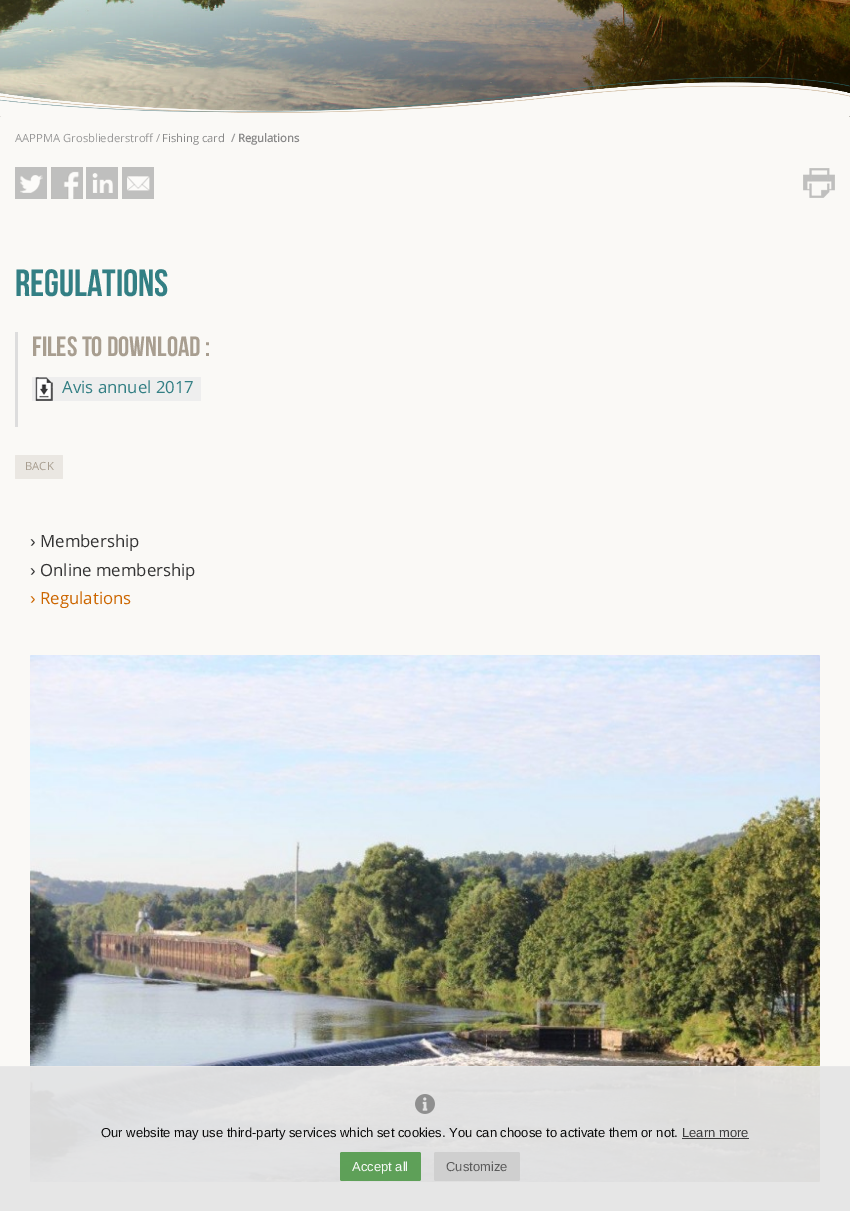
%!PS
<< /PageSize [850 1211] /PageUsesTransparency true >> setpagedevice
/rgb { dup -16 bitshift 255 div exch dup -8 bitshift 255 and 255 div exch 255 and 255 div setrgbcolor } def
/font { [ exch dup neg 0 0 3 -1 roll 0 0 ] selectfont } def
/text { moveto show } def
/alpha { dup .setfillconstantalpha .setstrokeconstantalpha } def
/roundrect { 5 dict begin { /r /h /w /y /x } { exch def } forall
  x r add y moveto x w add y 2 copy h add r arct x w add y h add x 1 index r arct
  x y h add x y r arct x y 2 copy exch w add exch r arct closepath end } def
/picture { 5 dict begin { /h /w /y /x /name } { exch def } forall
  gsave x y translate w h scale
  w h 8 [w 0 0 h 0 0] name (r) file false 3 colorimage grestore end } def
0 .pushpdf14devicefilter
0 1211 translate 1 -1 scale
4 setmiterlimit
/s1 { /OpenSans-Regular 11.25 font 16#999999 rgb } def
/s2 { /OpenSans-Regular 11.25 font 16#888888 rgb } def
/s3 { /OpenSans-Bold 11.25 font 16#999999 rgb } def
/s4 { /OpenSans-Bold 11.25 font 16#888888 rgb } def
/s5 { /BebasNeue-Regular 38 font 16#337F84 rgb } def
/s6 { /BebasNeue-Regular 28 font 16#A89E90 rgb } def
/s7 { /OpenSans-Regular 16.75 font 16#337F84 rgb } def
/s8 { /OpenSans-Regular 11.25 font 16#A89E90 rgb } def
/s9 { /LiberationSans-Regular 16.75 font 16#333333 rgb } def
/s10 { /OpenSans-Regular 16.75 font 16#333333 rgb } def
/s11 { /LiberationSans-Regular 16.75 font 16#CC6600 rgb } def
/s12 { /OpenSans-Regular 16.75 font 16#CC6600 rgb } def
/s13 { /LiberationSans-Regular 13 font 16#0B0B0B rgb } def
/s14 { /LiberationSans-Regular 13 font 16#3C3C3C rgb } def
/s15 { /LiberationSans-Regular 13 font 16#F7FAF7 rgb } def
/s16 { /LiberationSans-Regular 13 font 16#5B5B5B rgb } def
16#FAF9F6 rgb
0 0 850 1211 rectfill
(pic1.raw) 0 0 850 117 picture
(pic2.raw) 0 77 850 40 picture
s1
(AAPPMA Grosbliederstroff /) 15 142 text
s2
(Fishing card) 162 142 text
s3
(/) 231 142 text
s4
(Regulations) 238 142 text
(pic3.raw) 15 167 32 32 picture
(pic4.raw) 51 167 32 32 picture
(pic5.raw) 86 167 32 32 picture
(pic6.raw) 122 167 32 32 picture
(pic7.raw) 803 168 32 30 picture
s5
(Regulations) 15 296 text
16#DDDDDD rgb
15 332 3 95 rectfill
s6
(Files to download :) 32 356 text
16#EEEEEE rgb
32 377 169 24 rectfill
(pic8.raw) 35 377 18 24 picture
s7
(Avis annuel 2017) 62 393 text
16#EAE7E2 rgb
15 455 48 24 1 roundrect fill
s8
(BACK) 25 470 text
s9
(›) 30 547 text
s10
(Membership) 40 547 text
s9
(›) 30 576 text
s10
(Online membership) 40 576 text
s11
(›) 30 604 text
s12
(Regulations) 40 604 text
(pic9.raw) 30 655 790 527 picture
(pic10.raw) 702 1210 79 1 picture
0.95 alpha
16#E5E5E5 rgb
0 1066 850 145 rectfill
0.87 alpha
16#E9E9E9 rgb
0 1066 850 1 rectfill
1 alpha
(pic11.raw) 415 1094 20 20 picture
s13
(Our website may use third-party services which set cookies. You can choose to activate them or not.) 101 1137 text
s14
(Learn more) 682 1137 text
682 1138 67 1 rectfill
0.95 alpha
16#579D51 rgb
340 1152 81 29 2 roundrect fill
1 alpha
s15
(Accept all) 352 1171 text
0.95 alpha
16#CECECE rgb
434 1152 86 29 2 roundrect fill
1 alpha
s16
(Customize) 446 1171 text
.poppdf14devicefilter showpage
